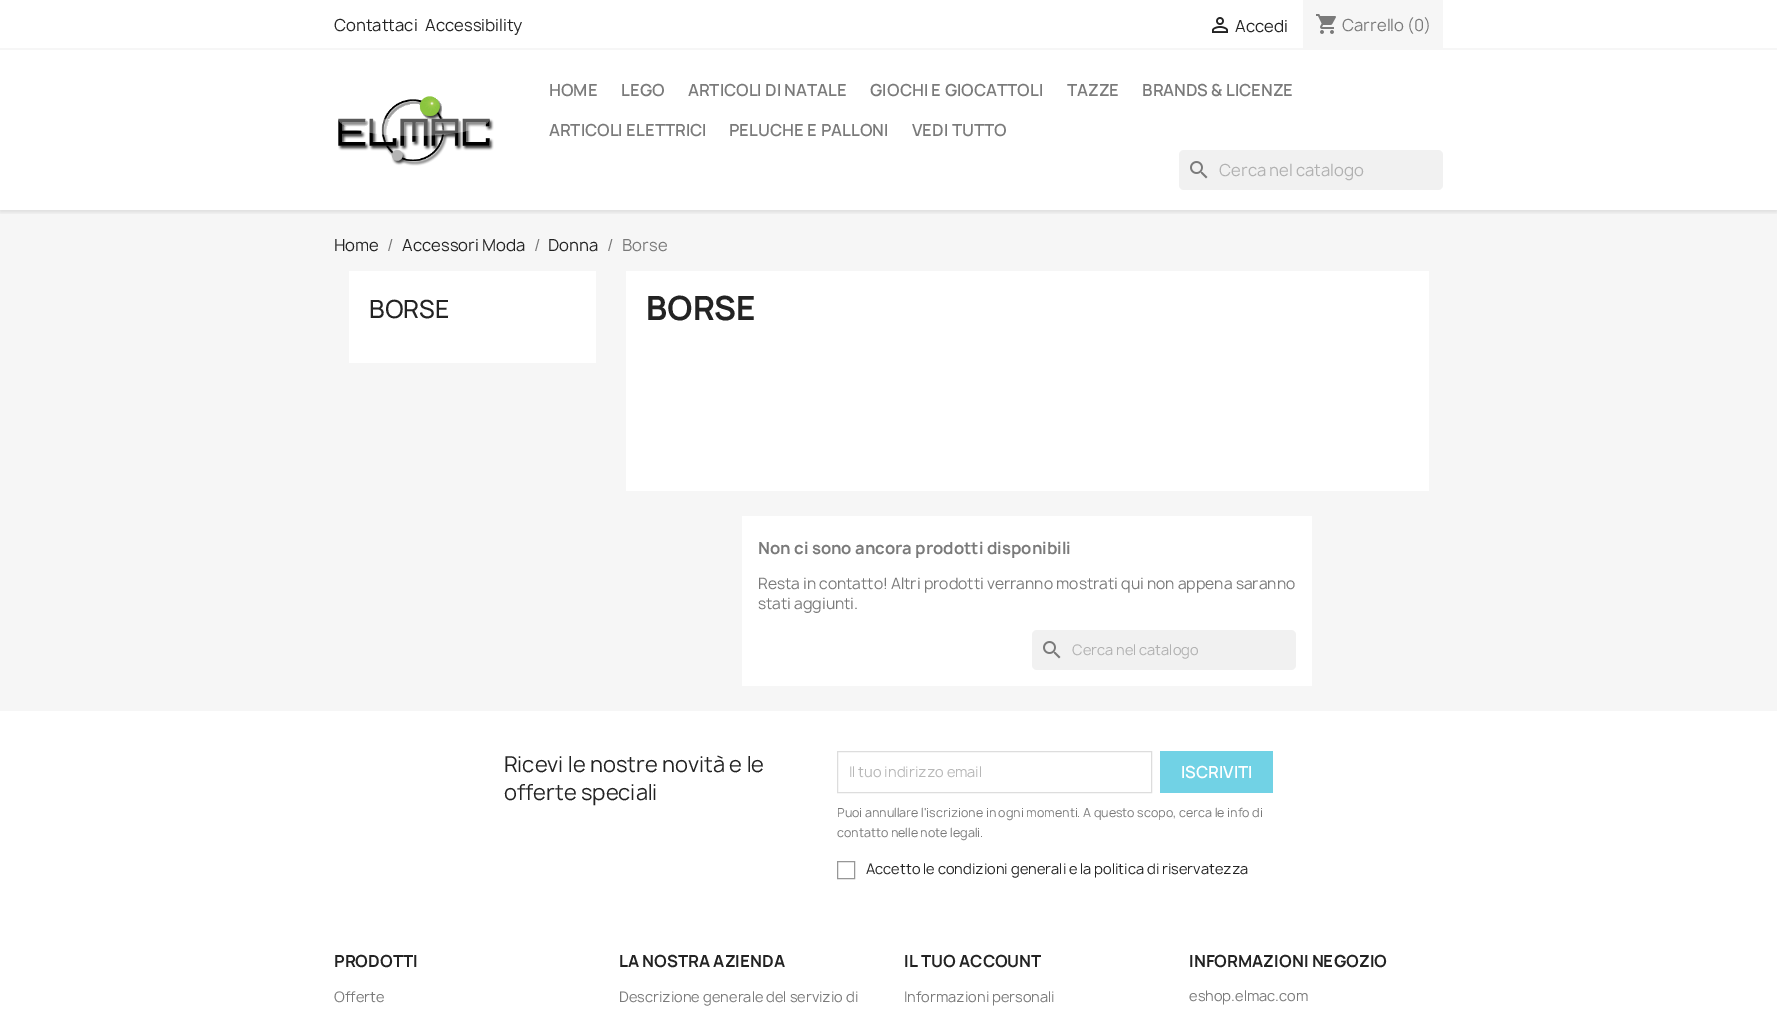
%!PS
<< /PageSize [1777 1016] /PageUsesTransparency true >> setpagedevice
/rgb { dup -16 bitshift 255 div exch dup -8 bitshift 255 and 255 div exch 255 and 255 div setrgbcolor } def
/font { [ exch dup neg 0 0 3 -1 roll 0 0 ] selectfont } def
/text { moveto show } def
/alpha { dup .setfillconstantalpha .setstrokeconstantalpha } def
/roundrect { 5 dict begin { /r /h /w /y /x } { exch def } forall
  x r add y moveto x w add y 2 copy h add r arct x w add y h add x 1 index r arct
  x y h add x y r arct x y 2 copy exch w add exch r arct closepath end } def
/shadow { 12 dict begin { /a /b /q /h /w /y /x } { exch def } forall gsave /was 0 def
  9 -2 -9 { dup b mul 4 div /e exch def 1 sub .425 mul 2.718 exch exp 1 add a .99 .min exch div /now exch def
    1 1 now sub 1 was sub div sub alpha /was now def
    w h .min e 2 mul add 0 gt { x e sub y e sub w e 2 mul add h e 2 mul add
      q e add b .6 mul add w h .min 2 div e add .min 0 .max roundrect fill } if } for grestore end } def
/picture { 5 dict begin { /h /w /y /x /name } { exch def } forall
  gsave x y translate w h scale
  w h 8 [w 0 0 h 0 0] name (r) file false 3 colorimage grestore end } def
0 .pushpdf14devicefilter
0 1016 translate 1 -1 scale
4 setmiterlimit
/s1 { /Manrope-Regular 16 font 16#232323 rgb } def
/s2 { /Manrope-Regular 16 font 16#7A7A7A rgb } def
/s3 { /Manrope-SemiBold 16 font 16#7A7A7A rgb } def
/s4 { /Manrope-Regular 16 font 16#B1B1B1 rgb } def
/s5 { /Manrope-Medium 24 font 16#232323 rgb } def
/s6 { /Manrope-Bold 32 font 16#232323 rgb } def
/s7 { /Manrope-Bold 16 font 16#7A7A7A rgb } def
/s8 { /Manrope-Regular 15 font 16#7A7A7A rgb } def
/s9 { /Manrope-Regular 14 font 16#B1B1B1 rgb } def
/s10 { /Manrope-Regular 21 font 16#232323 rgb } def
/s11 { /Manrope-Regular 14 font 16#B7B7B7 rgb } def
/s12 { /Manrope-SemiBold 16 font 16#FFFFFF rgb } def
/s13 { /Manrope-Regular 12 font 16#7A7A7A rgb } def
/s14 { /Manrope-Regular 14 font 16#232323 rgb } def
/s15 { /Manrope-Bold 16 font 16#232323 rgb } def
/s16 { /Manrope-Regular 14 font 16#7A7A7A rgb } def
16#FFFFFF rgb
0 0 1777 1016 rectfill
16#F6F6F6 rgb
0 210 1777 501 rectfill
gsave
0 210 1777 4 rectclip
16#000000 rgb
0 2 1777 210 0 2.5 0.11 shadow
grestore
0 48 1777 2 rectfill
s1
(Contattaci) 334 31 text
(Accessibility) 425 31 text
(pic1.raw) 1212 17 16 16 picture
(Accedi) 1235 32 text
16#F6F6F6 rgb
1303 0 140 48 rectfill
(pic2.raw) 1316 14 20 20 picture
s2
(Carrello \(0\)) 1342 31 text
(pic3.raw) 338 96 156 70 picture
s3
(HOME) 549 96 text
(LEGO) 621 96 text
(ARTICOLI DI NATALE) 688 96 text
(GIOCHI E GIOCATTOLI) 870 96 text
(TAZZE) 1067 96 text
(BRANDS & LICENZE) 1142 96 text
(ARTICOLI ELETTRICI) 549 136 text
(PELUCHE E PALLONI) 729 136 text
(VEDI TUTTO) 912 136 text
16#F1F1F1 rgb
1179 150 264 40 5 roundrect fill
(pic4.raw) 1190 161 18 18 picture
s4
(Cerca nel catalogo) 1219 176 text
s1
(Home) 334 251 text
s2
(/) 387 251 text
s1
(Accessori Moda) 402 251 text
s2
(/) 534 251 text
s1
(Donna) 548 251 text
s2
(/) 607 251 text
(Borse) 622 251 text
16#FFFFFF rgb
349 271 247 92 rectfill
s5
(BORSE) 369 318 text
16#FFFFFF rgb
626 271 803 220 rectfill
s6
(BORSE) 646 320 text
16#FFFFFF rgb
742 516 570 170 rectfill
s7
(Non ci sono ancora prodotti disponibili) 758 554 text
s8
(Resta in contatto! Altri prodotti verranno mostrati qui non appena saranno) 758 589 text
(stati aggiunti.) 758 609 text
16#F1F1F1 rgb
1032 630 264 40 5 roundrect fill
(pic4.raw) 1043 641 18 18 picture
s9
(Cerca nel catalogo) 1072 655 text
s10
(Ricevi le nostre novità e le) 504 772 text
(offerte speciali) 504 800 text
16#DDDDDD rgb
837.5 751.5 314 41 rectstroke
s11
(Il tuo indirizzo email) 849 777 text
16#71D2E5 rgb
1160 751 113 42 rectfill
s12
(ISCRIVITI) 1181 778 text
s13
(Puoi annullare l'iscrizione in ogni momenti. A questo scopo, cerca le info di) 837 817 text
(contatto nelle note legali.) 837 837 text
16#979797 rgb
837.5 861.5 17 17 rectstroke
s14
(Accetto le condizioni generali e la politica di riservatezza) 866 874 text
s15
(PRODOTTI) 334 967 text
s16
(Offerte) 334 1002 text
s15
(LA NOSTRA AZIENDA) 619 967 text
s16
(Descrizione generale del servizio di) 619 1002 text
s15
(IL TUO ACCOUNT) 904 967 text
s16
(Informazioni personali) 904 1002 text
s15
(INFORMAZIONI NEGOZIO) 1189 967 text
s16
(eshop.elmac.com) 1189 1001 text
.poppdf14devicefilter showpage
